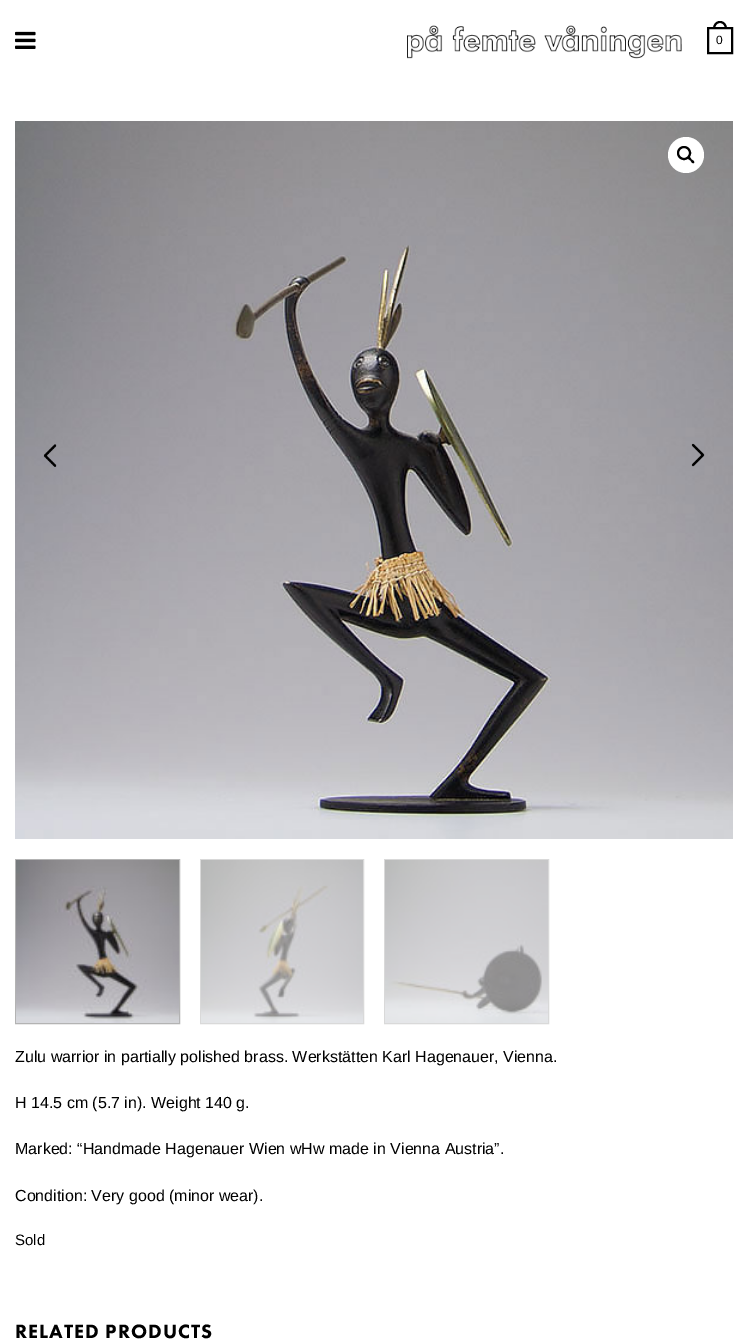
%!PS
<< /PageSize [748 1341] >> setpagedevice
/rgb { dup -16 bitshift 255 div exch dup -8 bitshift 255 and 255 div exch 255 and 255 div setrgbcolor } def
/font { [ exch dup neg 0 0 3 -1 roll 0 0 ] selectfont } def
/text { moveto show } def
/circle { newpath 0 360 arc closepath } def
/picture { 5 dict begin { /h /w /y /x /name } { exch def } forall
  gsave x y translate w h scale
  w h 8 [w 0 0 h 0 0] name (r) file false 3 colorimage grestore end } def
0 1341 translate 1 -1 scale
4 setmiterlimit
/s1 { /LiberationSans-Regular 12 font 16#000000 rgb } def
/s2 { /LiberationSans-Regular 16 font 16#000000 rgb } def
/s3 { /LiberationSans-Regular 15 font 16#000000 rgb } def
16#FFFFFF rgb
0 0 748 1341 rectfill
(pic1.raw) 15 31 21 18 picture
(pic2.raw) 407 25 275 34 picture
16#000000 rgb
2 setlinewidth
708 28 24 25 rectstroke
720 21 moveto 724.5 21 727 25 727 29 curveto 713 29 lineto 713 25 715.5 21 720 21 curveto closepath 720 23 moveto 723.5 23 725 26 725 29 curveto 715 29 lineto 715 26 716.5 23 720 23 curveto closepath eofill
s1
(0) 716 44 text
(pic3.raw) 15 121 718 718 picture
16#FFFFFF rgb
686 155 18 circle fill
16#000000 rgb
684 153 6 circle stroke
688 157 moveto 689.5 156 691 158.5 691.5 159.5 curveto 692.5 160 695 161.5 694 163 curveto 692.5 164 691 161.5 690.5 160.5 curveto 689.5 160 687 158.5 688 157 curveto closepath fill
(pic4.raw) 43 444 14 23 picture
(pic5.raw) 691 443 14 24 picture
16#B3B3B3 rgb
1 setlinewidth
15.5 859.5 164 164 rectstroke
(pic6.raw) 16 860 163 163 picture
16#D9D9D9 rgb
200.5 859.5 163 164 rectstroke
(pic7.raw) 201 860 162 163 picture
384.5 859.5 164 164 rectstroke
(pic8.raw) 385 860 163 163 picture
s2
(Zulu warrior in partially polished brass. Werkstätten Karl Hagenauer, Vienna.) 15 1062 text
(H 14.5 cm \(5.7 in\). Weight 140 g.) 15 1108 text
(Marked: “Handmade Hagenauer Wien wHw made in Vienna Austria”.) 15 1154 text
(Condition: Very good \(minor wear\).) 15 1201 text
s3
(Sold) 15 1245 text
/FuturaPT-Black 20 font
15 1338 moveto 1 0 (RELATED PRODUCTS) ashow
showpage
